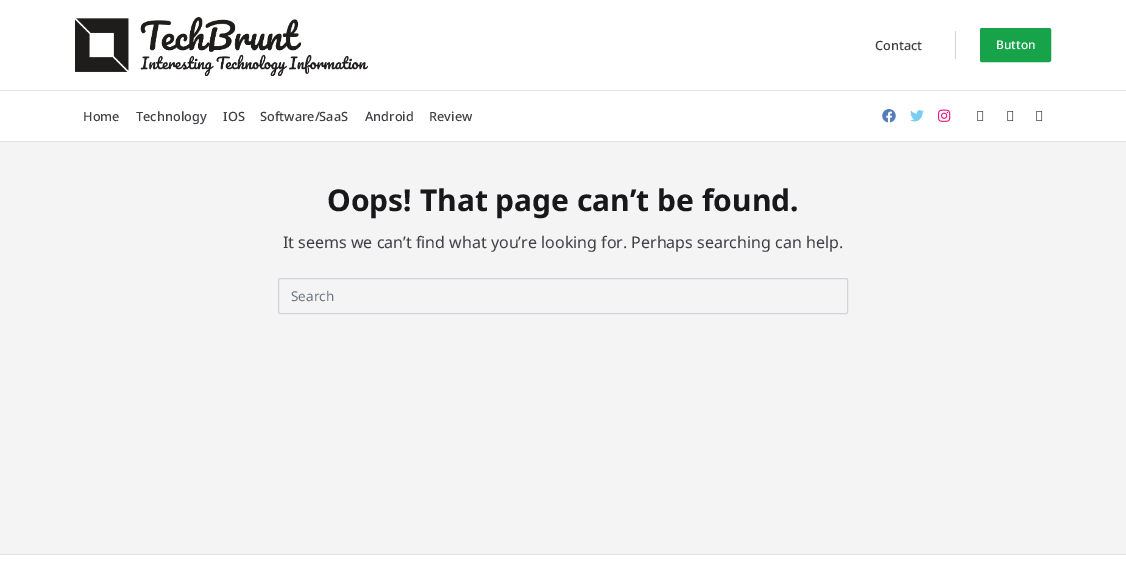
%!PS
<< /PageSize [1126 572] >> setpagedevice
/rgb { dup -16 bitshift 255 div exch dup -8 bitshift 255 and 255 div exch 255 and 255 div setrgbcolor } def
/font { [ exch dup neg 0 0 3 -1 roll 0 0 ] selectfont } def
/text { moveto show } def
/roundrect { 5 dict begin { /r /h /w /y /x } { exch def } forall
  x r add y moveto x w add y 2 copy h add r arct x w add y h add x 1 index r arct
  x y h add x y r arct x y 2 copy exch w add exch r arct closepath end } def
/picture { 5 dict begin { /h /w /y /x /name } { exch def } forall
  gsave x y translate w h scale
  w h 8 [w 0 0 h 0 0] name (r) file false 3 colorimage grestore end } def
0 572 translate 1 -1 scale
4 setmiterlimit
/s1 { /NotoSans-Medium 12.75 font 16#3F3F46 rgb } def
/s2 { /NotoSans-Medium 12 font 16#FFFFFF rgb } def
/s3 { /NotoSans-Bold 30 font 16#18181B rgb } def
/s4 { /NotoSans-Regular 16 font 16#3F3F46 rgb } def
/s5 { /NotoSans-Regular 13.5 font 16#6B7280 rgb } def
16#F4F4F5 rgb
0 0 1126 572 rectfill
16#FFFFFF rgb
0 0 1126 90 rectfill
16#E4E4E7 rgb
0 90 1126 1 rectfill
(pic1.raw) 75 17 293 59 picture
s1
(Contact) 875 50 text
16#D4D4D8 rgb
955 31 1 28 rectfill
16#16A34A rgb
980.5 28.5 70 33 1.5 roundrect gsave fill grestore
stroke
s2
(Button) 996 49 text
0 91 1126 50 rectfill
16#E4E4E7 rgb
0 141 1126 1 rectfill
s1
(Home) 83 121 text
(Technology) 136 121 text
(IOS) 223 121 text
(Software/SaaS) 260 121 text
(Android) 365 121 text
(Review) 429 121 text
(pic2.raw) 882 109 14 14 picture
(pic3.raw) 910 110 14 12 picture
(pic4.raw) 938 109 13 13 picture
(pic5.raw) 977 111 7 10 picture
(pic5.raw) 1007 111 7 10 picture
(pic5.raw) 1036 111 7 10 picture
s3
(Oops! That page can’t be found.) 327 211 text
s4
(It seems we can’t find what you’re looking for. Perhaps searching can help.) 283 248 text
16#D4D4D8 rgb
278.5 278.5 569 35 1.5 roundrect stroke
s5
(Search) 291 301 text
16#FFFFFF rgb
0 555 1126 17 rectfill
16#E4E4E7 rgb
0 554 1126 1 rectfill
showpage
